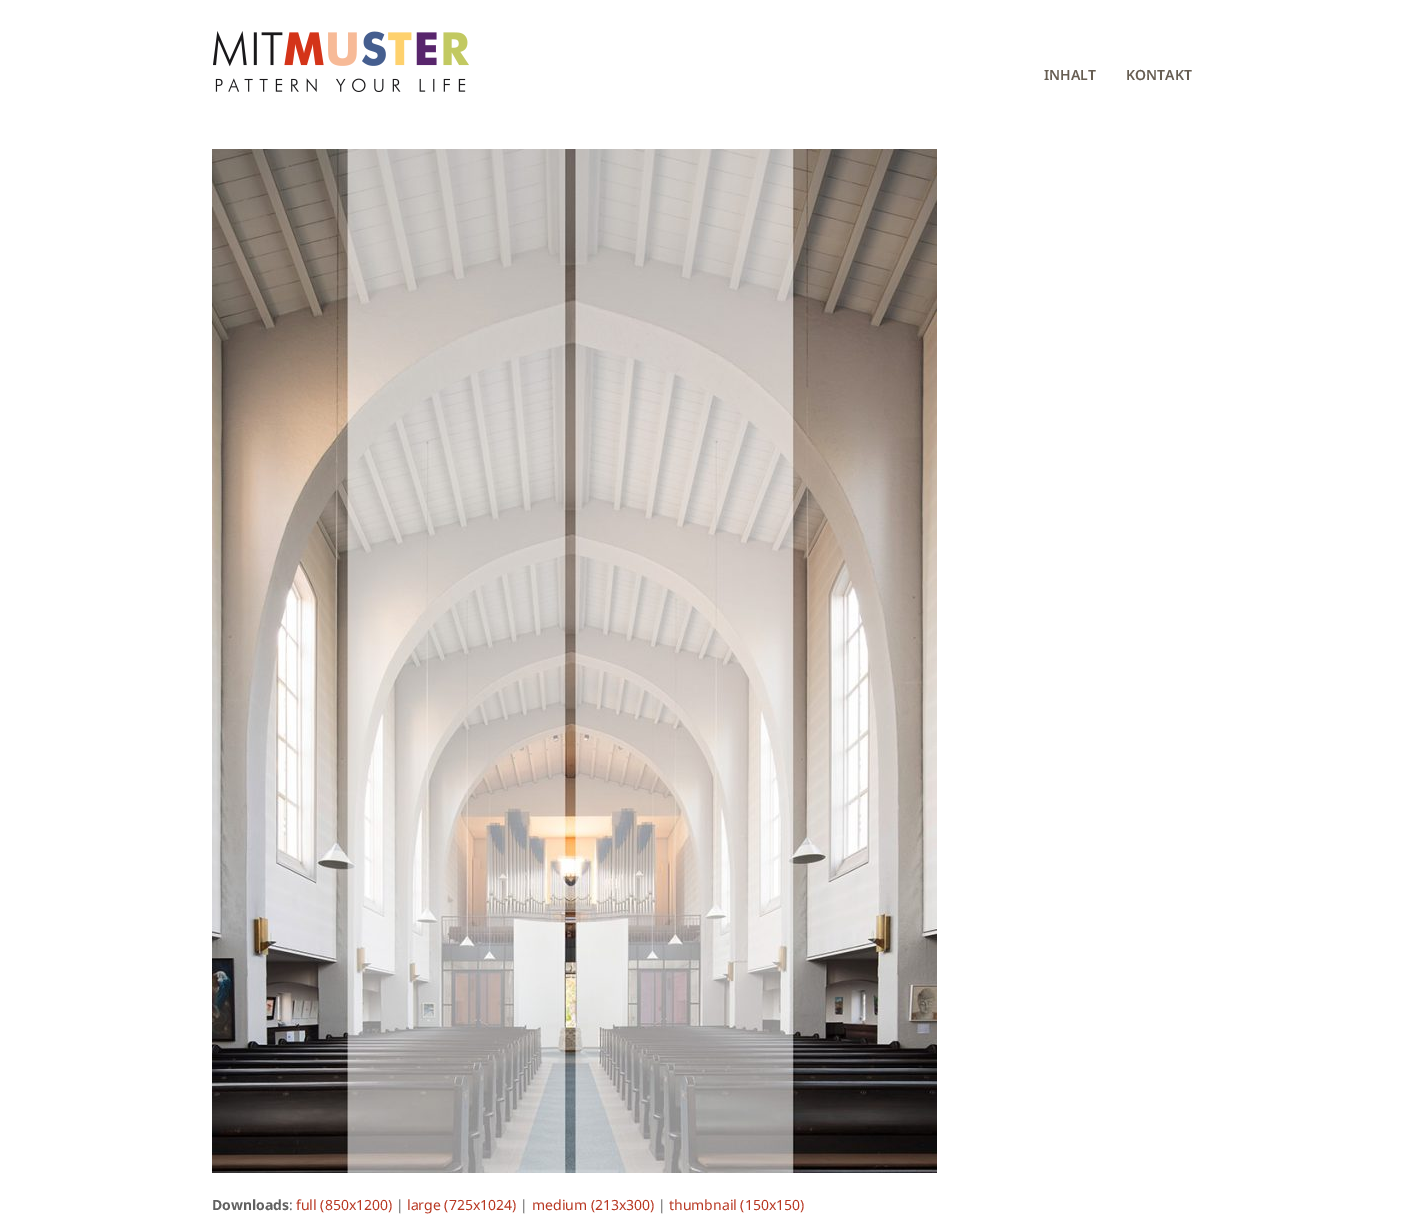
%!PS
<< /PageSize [1403 1224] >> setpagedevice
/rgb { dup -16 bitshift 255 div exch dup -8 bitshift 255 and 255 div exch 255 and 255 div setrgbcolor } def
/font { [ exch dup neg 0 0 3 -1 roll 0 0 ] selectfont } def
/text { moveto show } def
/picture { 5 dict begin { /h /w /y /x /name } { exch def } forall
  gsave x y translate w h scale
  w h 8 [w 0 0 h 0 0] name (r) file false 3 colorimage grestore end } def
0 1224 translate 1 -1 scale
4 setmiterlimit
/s1 { /NotoSans-SemiBold 14 font 16#665D52 rgb } def
/s2 { /NotoSans-Bold 14 font 16#616161 rgb } def
/s3 { /NotoSans-Regular 14 font 16#616161 rgb } def
/s4 { /NotoSans-Regular 14 font 16#B83721 rgb } def
16#FFFFFF rgb
0 0 1403 1224 rectfill
(pic1.raw) 213 31 256 61 picture
s1
(INHALT) 1044 80 text
(KONTAKT) 1126 80 text
(pic2.raw) 212 149 725 1024 picture
s2
(Downloads) 212 1210 text
s3
(:) 289 1210 text
s4
(full \(850x1200\)) 296 1210 text
s3
(|) 396 1210 text
s4
(large \(725x1024\)) 407 1210 text
s3
(|) 520 1210 text
s4
(medium \(213x300\)) 532 1210 text
s3
(|) 658 1210 text
s4
(thumbnail \(150x150\)) 669 1210 text
showpage
